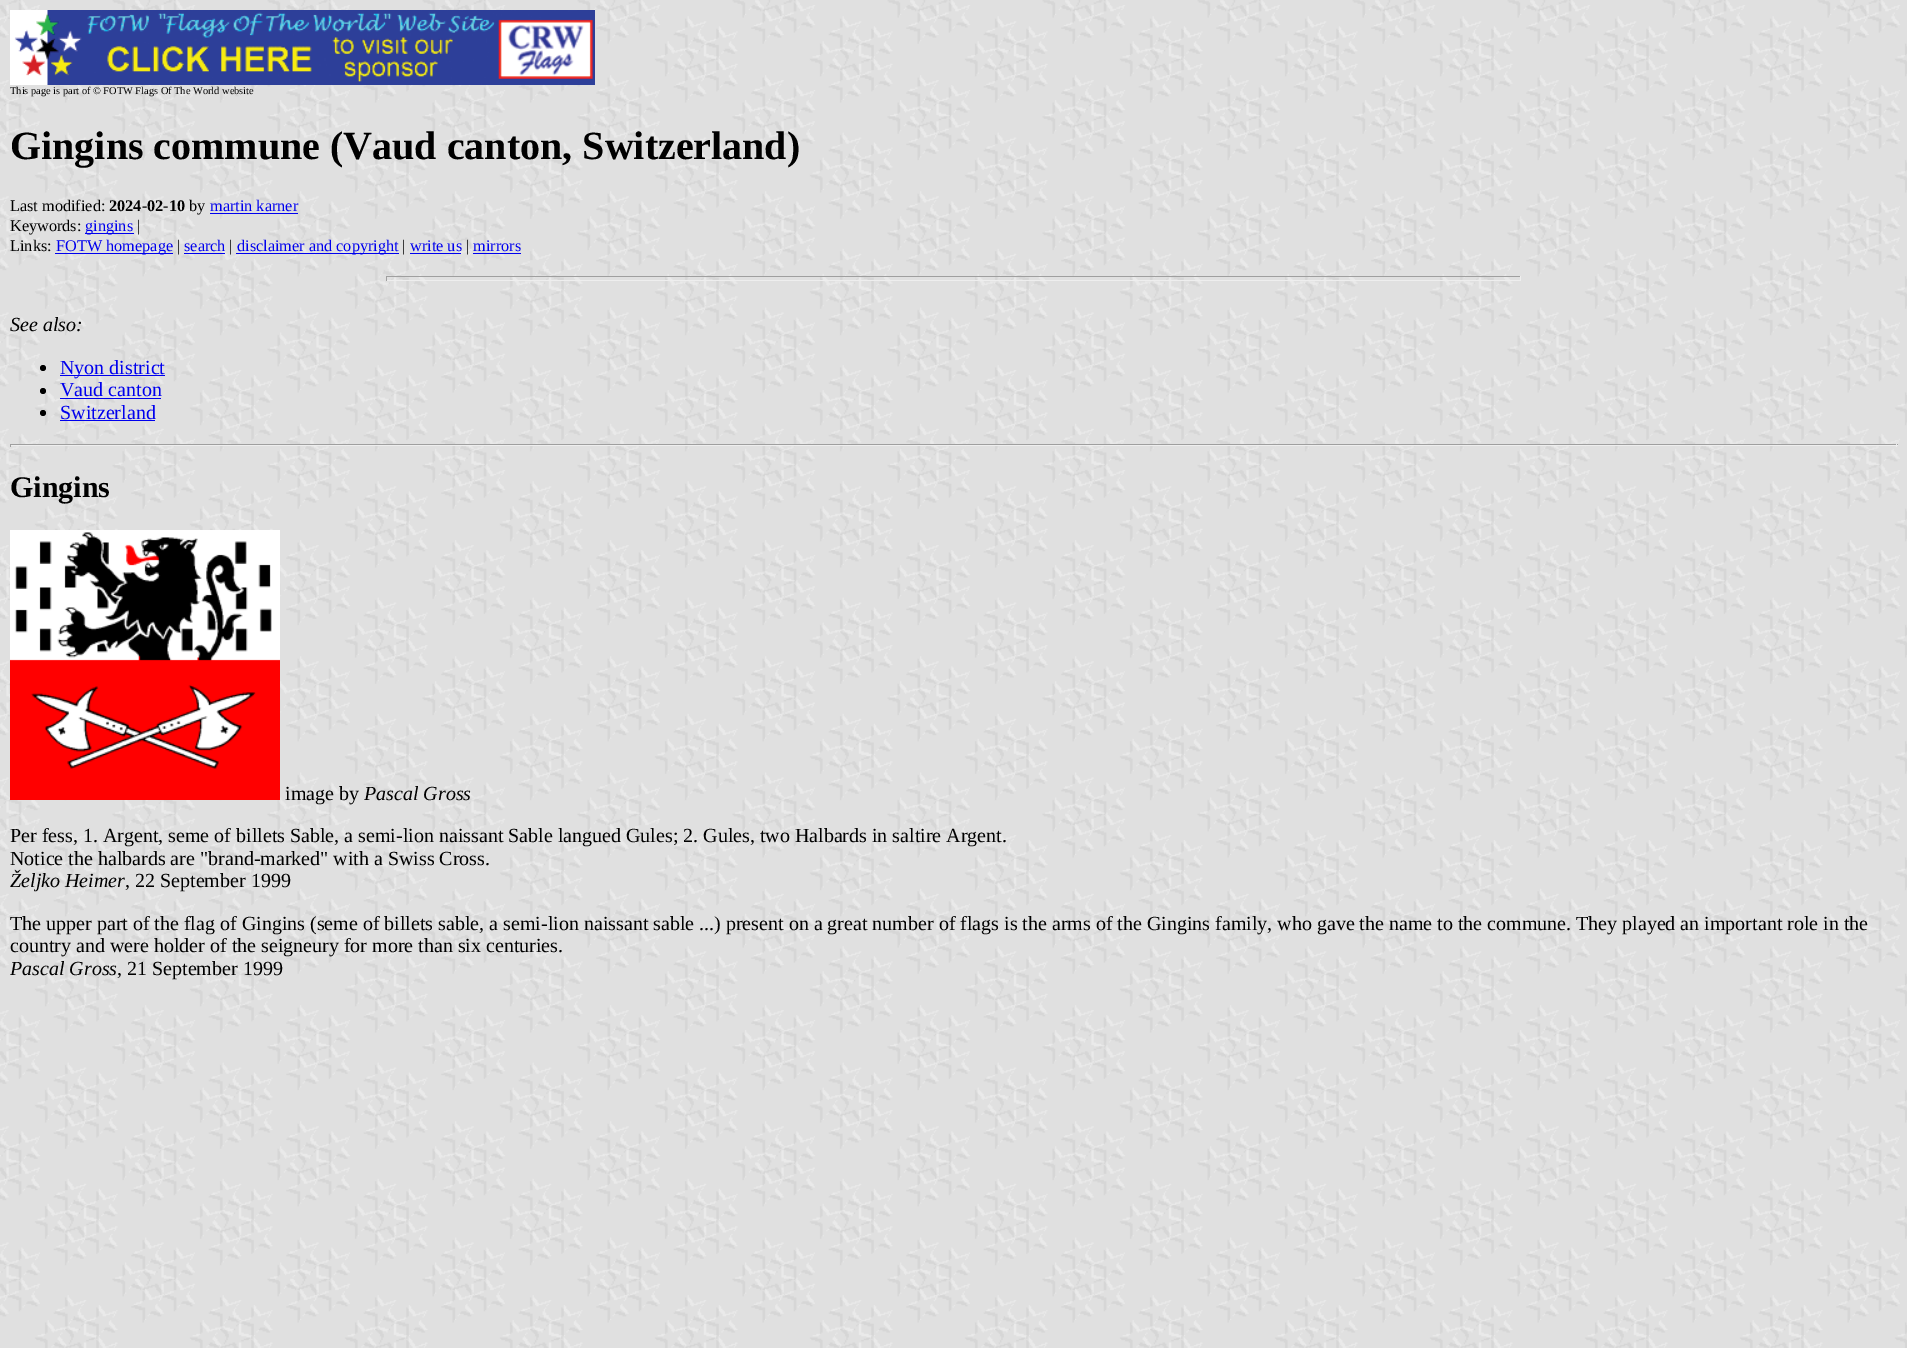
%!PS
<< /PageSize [1907 1348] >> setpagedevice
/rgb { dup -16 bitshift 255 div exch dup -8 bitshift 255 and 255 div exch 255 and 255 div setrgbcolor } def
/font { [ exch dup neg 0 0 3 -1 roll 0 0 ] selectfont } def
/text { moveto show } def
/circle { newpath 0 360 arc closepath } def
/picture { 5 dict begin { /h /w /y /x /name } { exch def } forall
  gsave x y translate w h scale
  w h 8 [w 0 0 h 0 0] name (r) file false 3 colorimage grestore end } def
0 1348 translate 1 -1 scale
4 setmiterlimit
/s1 { /LiberationSerif-Regular 10.4 font 16#000000 rgb } def
/s2 { /LiberationSerif-Bold 40 font 16#000000 rgb } def
/s3 { /LiberationSerif-Regular 16.25 font 16#000000 rgb } def
/s4 { /LiberationSerif-Bold 16.25 font 16#000000 rgb } def
/s5 { /LiberationSerif-Regular 16.25 font 16#0000EE rgb } def
/s6 { /LiberationSerif-Italic 20 font 16#000000 rgb } def
/s7 { /LiberationSerif-Regular 20 font 16#0000EE rgb } def
/s8 { /LiberationSerif-Bold 30 font 16#000000 rgb } def
/s9 { /LiberationSerif-Regular 20 font 16#000000 rgb } def
16#FFFFFF rgb
0 0 1907 1348 rectfill
(pic1.raw) 0 0 1907 1348 picture
(pic2.raw) 10 10 585 75 picture
s1
(This page is part of © FOTW Flags Of The World website) 10 94 text
s2
(Gingins commune \(Vaud canton, Switzerland\)) 10 159 text
s3
(Last modified:) 10 211 text
s4
(2024-02-10) 109 211 text
s3
(by) 189 211 text
s5
(martin karner) 210 211 text
210 213 88 1 rectfill
s3
(Keywords:) 10 231 text
16#0000EE rgb
85 233 49 1 rectfill
(gingins) 85 231 text
s3
(|) 137 231 text
(Links:) 10 251 text
16#0000EE rgb
55 253 118 1 rectfill
(FOTW homepage) 56 251 text
s3
(|) 177 251 text
s5
(search) 184 251 text
184 253 41 1 rectfill
s3
(|) 229 251 text
16#0000EE rgb
236 253 163 1 rectfill
(disclaimer and copyright) 237 251 text
s3
(|) 402 251 text
s5
(write us) 410 251 text
410 253 51 1 rectfill
s3
(|) 466 251 text
s5
(mirrors) 473 251 text
473 253 48 1 rectfill
16#9F9F9F rgb
386 276 1135 1 rectfill
16#EEEEEE rgb
1520 276 1 5 rectfill
386 280 1135 1 rectfill
16#9F9F9F rgb
386 276 1 5 rectfill
s6
(See also:) 10 331 text
43 368 3 circle fill
16#0000EE rgb
60 375 105 1 rectfill
s7
(Nyon district) 60 374 text
16#000000 rgb
43 391 3 circle fill
s7
(Vaud canton) 60 396 text
60 398 101 1 rectfill
16#000000 rgb
43 413 3 circle fill
s7
(Switzerland) 60 419 text
60 420 95 1 rectfill
16#9F9F9F rgb
10 444 1888 1 rectfill
16#EEEEEE rgb
1896 444 1 3 rectfill
10 445 1888 1 rectfill
16#9F9F9F rgb
10 444 1 3 rectfill
s8
(Gingins) 10 497 text
(pic3.raw) 10 530 270 270 picture
s9
(image by) 285 800 text
s6
(Pascal Gross) 364 800 text
s9
(Per fess, 1. Argent, seme of billets Sable, a semi-lion naissant Sable langued Gules; 2. Gules, two Halbards in saltire Argent.) 10 842 text
(Notice the halbards are "brand-marked" with a Swiss Cross.) 10 865 text
s6
(Željko Heimer) 10 887 text
s9
(, 22 September 1999) 125 887 text
(The upper part of the flag of Gingins \(seme of billets sable, a semi-lion naissant sable ...\) present on a great number of flags is the arms of the Gingins family, who gave the name to the commune. They played an important role in the) 10 930 text
(country and were holder of the seigneury for more than six centuries.) 10 952 text
s6
(Pascal Gross) 10 975 text
s9
(, 21 September 1999) 117 975 text
showpage
